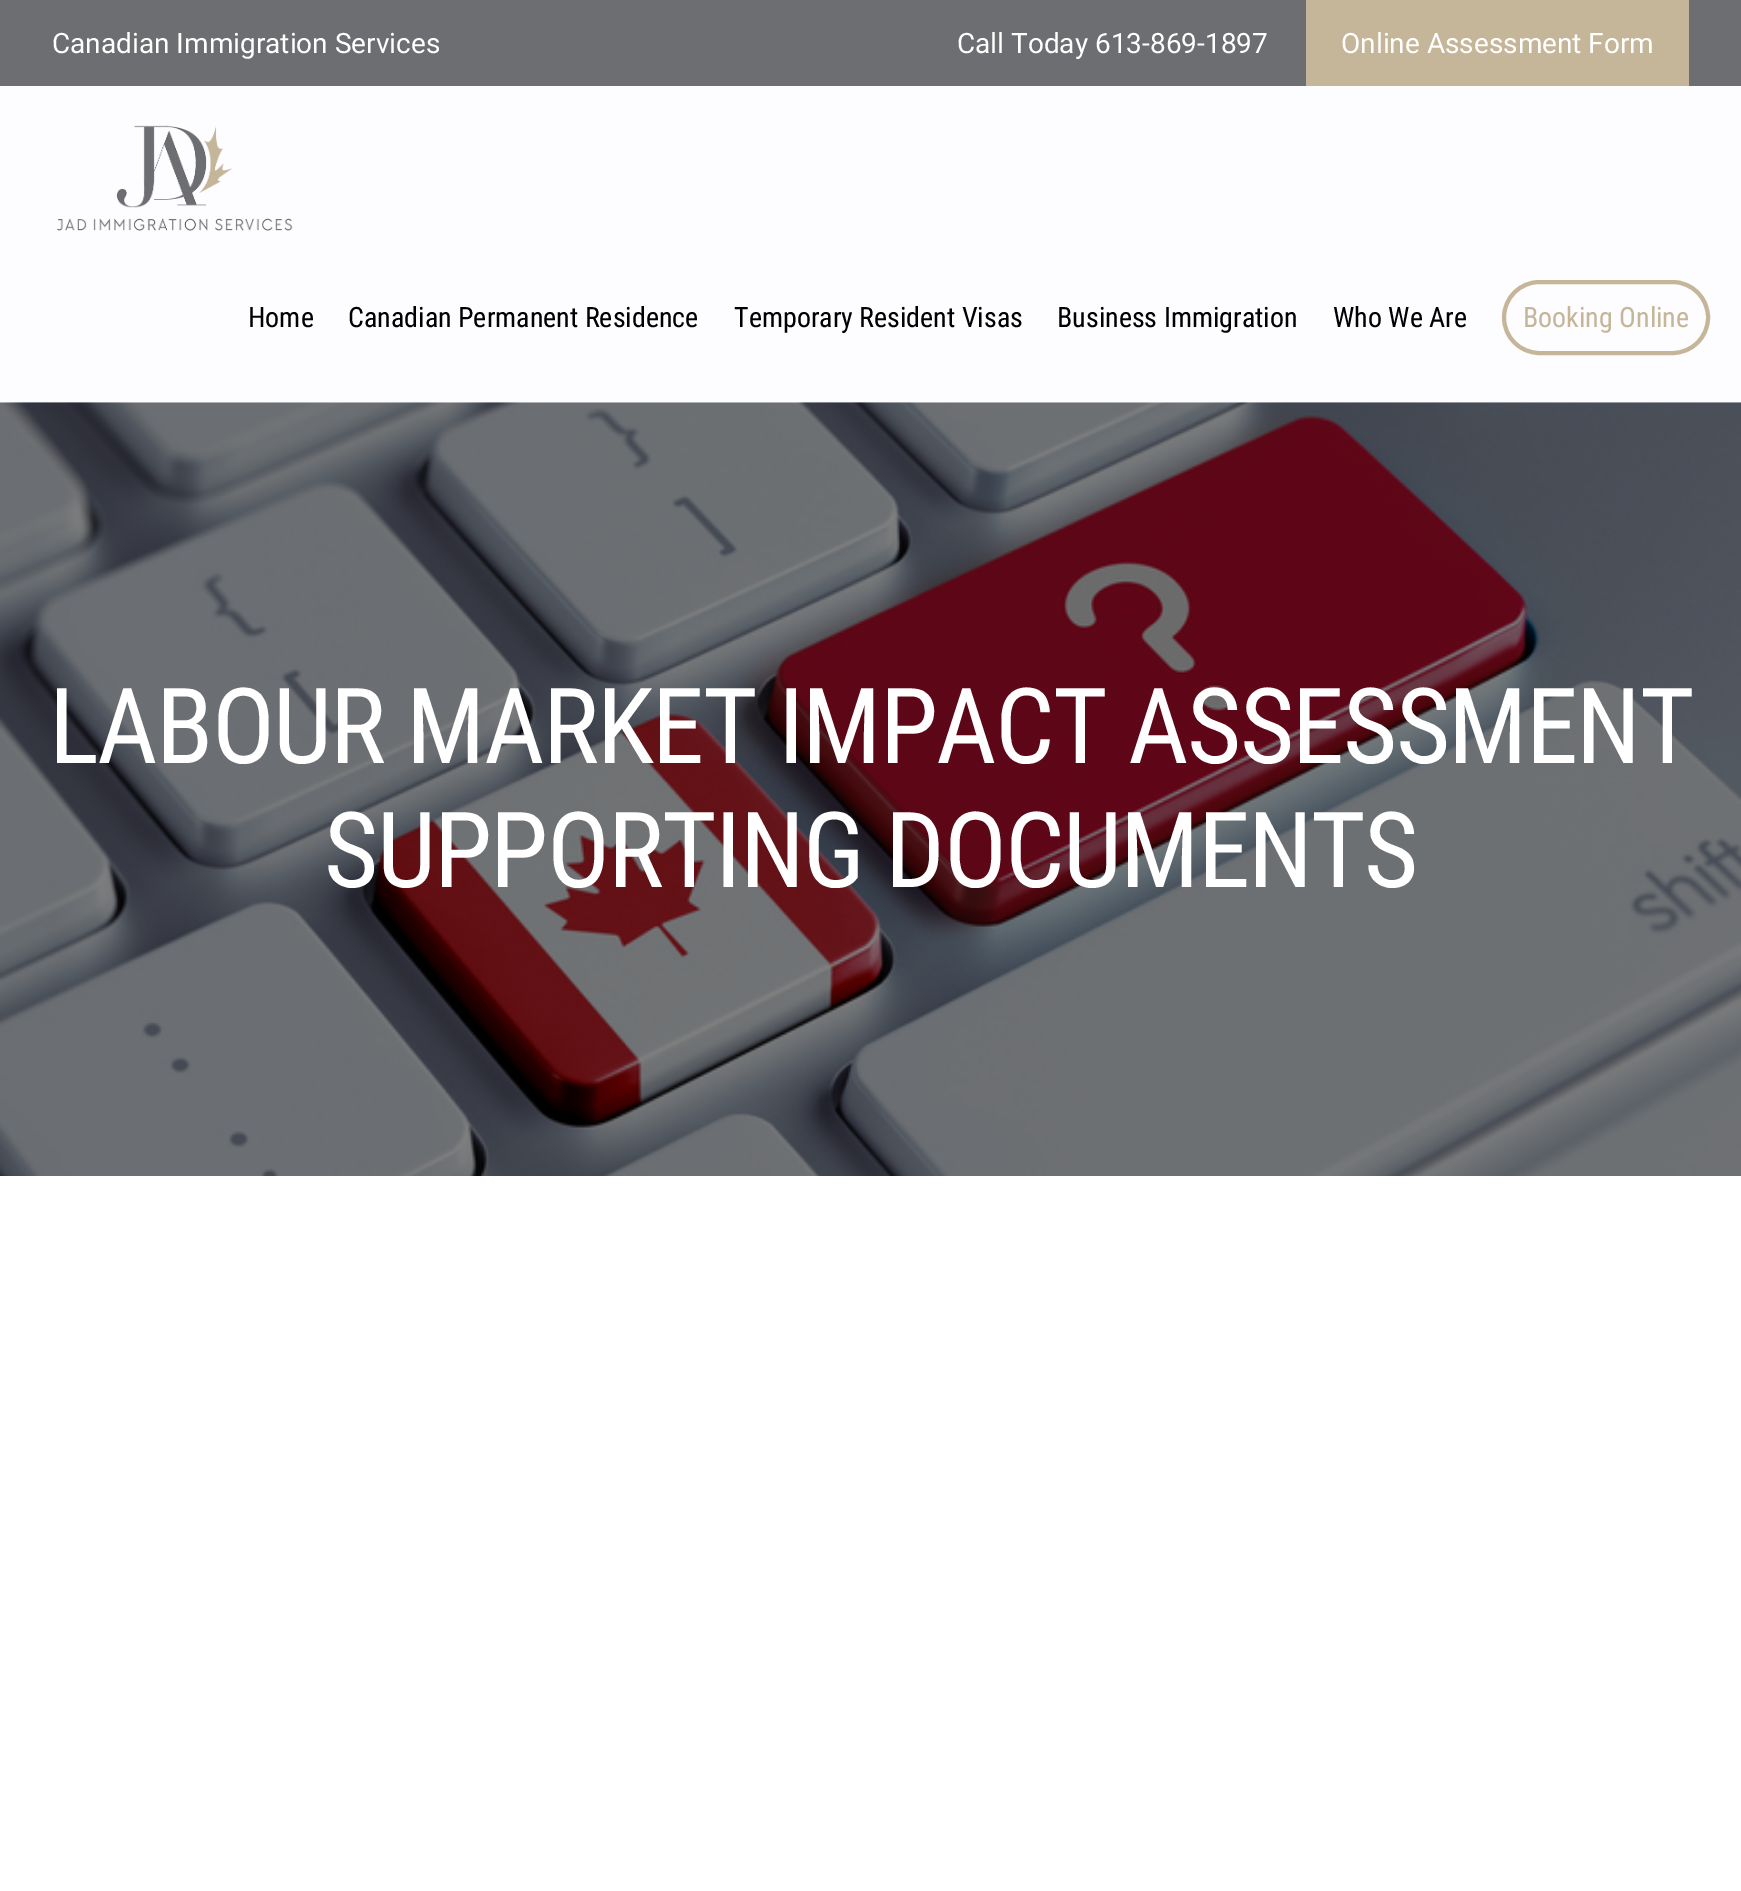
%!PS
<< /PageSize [1741 1891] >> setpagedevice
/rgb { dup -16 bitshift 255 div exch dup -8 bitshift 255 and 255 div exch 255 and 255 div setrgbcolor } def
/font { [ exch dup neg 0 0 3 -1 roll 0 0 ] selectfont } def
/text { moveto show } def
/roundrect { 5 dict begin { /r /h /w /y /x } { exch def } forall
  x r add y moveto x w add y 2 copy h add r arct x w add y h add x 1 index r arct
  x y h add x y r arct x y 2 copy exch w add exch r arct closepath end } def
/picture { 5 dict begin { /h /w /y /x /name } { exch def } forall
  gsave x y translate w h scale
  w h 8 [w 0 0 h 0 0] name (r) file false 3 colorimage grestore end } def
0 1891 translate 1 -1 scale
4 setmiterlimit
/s1 { /Roboto-Regular 28 font 16#FFFFFF rgb } def
/s2 { /RobotoCondensed-Regular 28 font 16#000000 rgb } def
/s3 { /RobotoCondensed-Regular 28 font 16#C5B599 rgb } def
16#FFFFFF rgb
0 0 1741 1891 rectfill
16#6D6E71 rgb
0 0 1741 86 rectfill
s1
(Canadian Immigration Services) 52 53 text
(Call Today 613-869-1897) 957 53 text
16#C5B599 rgb
1306 0 383 86 rectfill
s1
(Online Assessment Form) 1341 53 text
16#FDFCFF rgb
0 86 1741 317 rectfill
(pic1.raw) 57 125 236 106 picture
s2
(Home) 248 327 text
(Canadian Permanent Residence) 348 327 text
(Temporary Resident Visas) 734 327 text
(Business Immigration) 1057 327 text
(Who We Are) 1333 327 text
16#C5B599 rgb
4 setlinewidth
1504 282 204 71 35.5 roundrect stroke
(Booking Online) 1523 327 text
(pic2.raw) 0 402 1741 774 picture
/RobotoCondensed-Regular 105 font
16#FFFFFF rgb
49 763 moveto -1.75 0 (LABOUR MARKET IMPACT ASSESSMENT) ashow
324 887 moveto -1.75 0 (SUPPORTING DOCUMENTS) ashow
showpage
